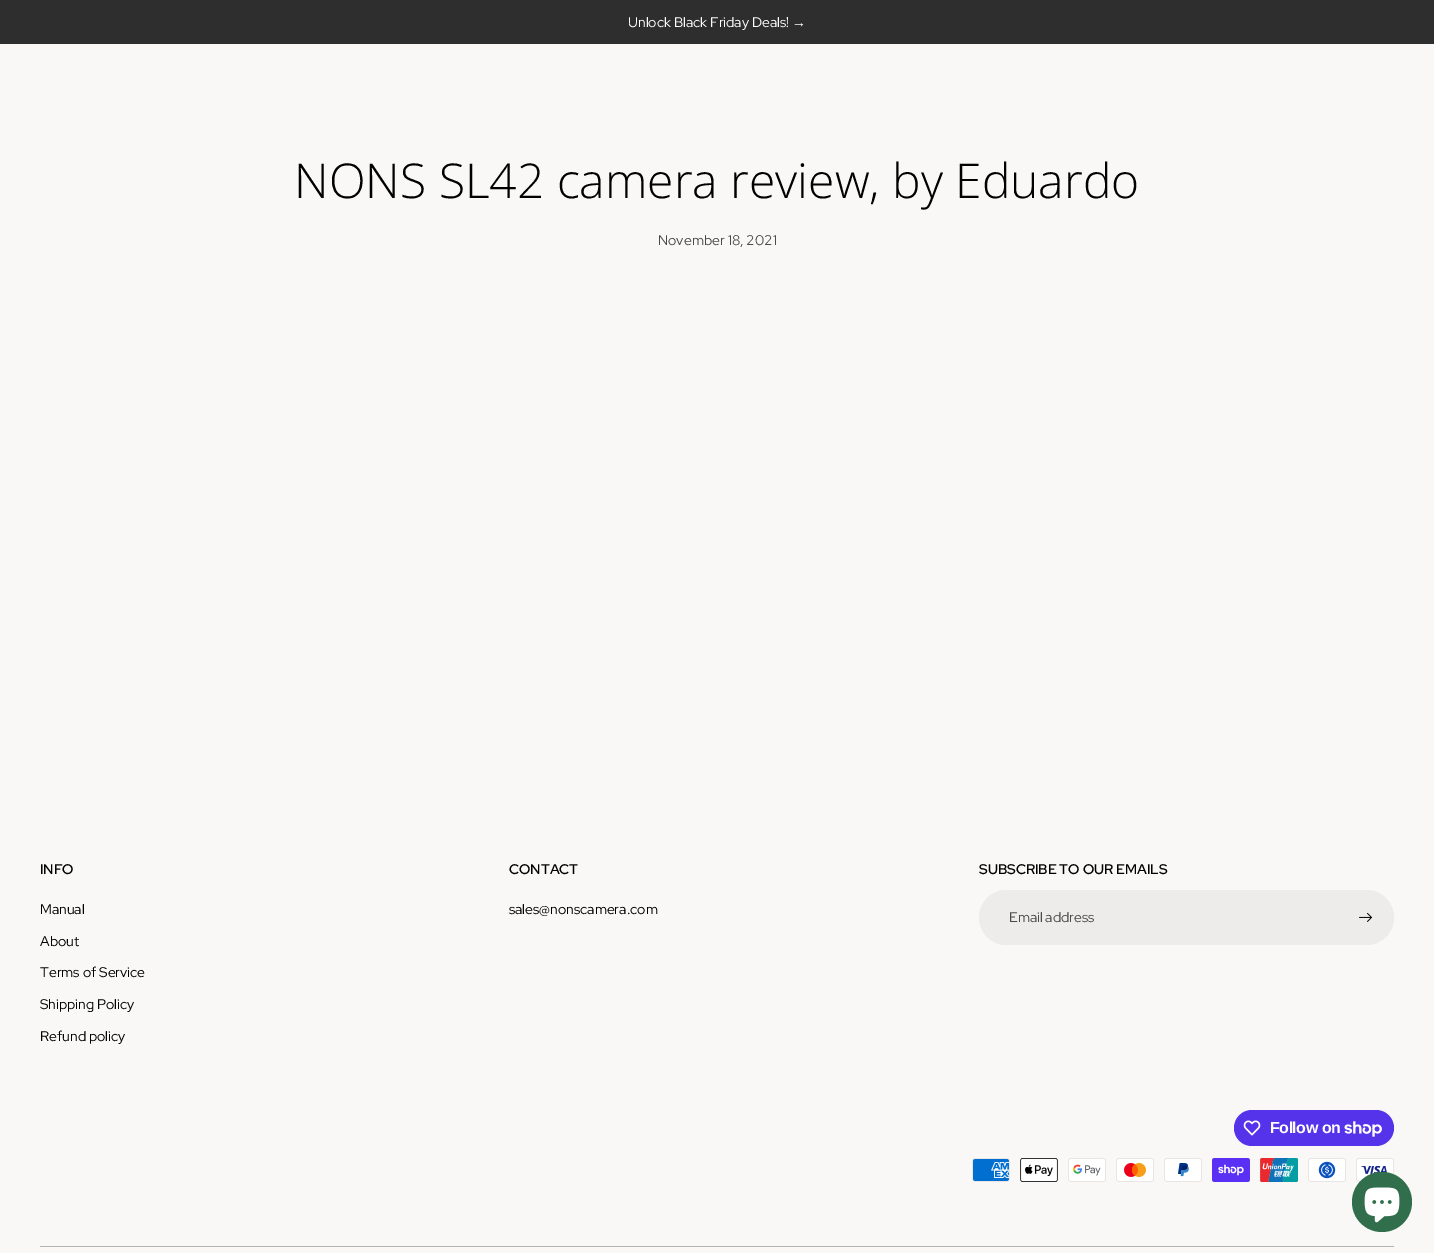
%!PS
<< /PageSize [1434 1253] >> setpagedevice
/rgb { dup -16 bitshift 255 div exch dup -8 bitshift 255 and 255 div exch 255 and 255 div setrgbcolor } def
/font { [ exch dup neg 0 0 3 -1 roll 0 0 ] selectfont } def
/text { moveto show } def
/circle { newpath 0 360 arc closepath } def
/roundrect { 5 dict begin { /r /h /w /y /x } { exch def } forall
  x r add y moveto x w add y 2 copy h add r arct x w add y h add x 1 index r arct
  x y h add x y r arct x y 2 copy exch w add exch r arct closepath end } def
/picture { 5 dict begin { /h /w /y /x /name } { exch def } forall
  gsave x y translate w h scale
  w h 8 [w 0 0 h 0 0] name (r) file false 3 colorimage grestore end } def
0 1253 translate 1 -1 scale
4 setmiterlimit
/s1 { /RedHatDisplay-Regular 14 font 16#FFFFFF rgb } def
/s2 { /LiberationSans-Regular 14 font 16#FFFFFF rgb } def
/s3 { /OpenSans-Light 48 font 16#000000 rgb } def
/s4 { /RedHatDisplay-Regular 14 font 16#4B4A4A rgb } def
/s5 { /RedHatDisplay-SemiBold 14 font 16#000000 rgb } def
/s6 { /RedHatDisplay-Regular 14 font 16#000000 rgb } def
16#F9F8F6 rgb
0 0 1434 1253 rectfill
16#2E2E2E rgb
0 0 1434 44 rectfill
s1
(Unlock Black Friday Deals!) 628 27 text
s2
(→) 792 27 text
s3
(NONS SL42 camera review, by Eduardo) 294 198 text
s4
(November 18, 2021) 658 245 text
s5
(INFO) 40 874 text
s6
(Manual) 40 914 text
(About) 40 946 text
(Terms of Service) 40 977 text
(Shipping Policy) 40 1009 text
(Refund policy) 40 1041 text
s5
(CONTACT) 509 874 text
s6
(sales@nonscamera.com) 509 914 text
s5
(SUBSCRIBE TO OUR EMAILS) 979 874 text
16#EDECEA rgb
979 890 415 55 27.5 roundrect fill
s4
(Email address) 1009 922 text
(pic1.raw) 1359 912 13 10 picture
16#5433EB rgb
1234 1110 160 36 18 roundrect fill
(pic2.raw) 1243 1120 18 16 picture
/LiberationSans-Bold 16 font
16#FFFFFF rgb
1270 1133 moveto -0.5 0 (Follow on) ashow
(pic3.raw) 1344 1121 38 16 picture
(pic4.raw) 972 1158 38 24 picture
(pic5.raw) 1020 1158 38 24 picture
(pic6.raw) 1068 1158 38 24 picture
(pic7.raw) 1116 1158 38 24 picture
(pic8.raw) 1164 1158 38 24 picture
(pic9.raw) 1212 1158 38 24 picture
(pic10.raw) 1260 1158 38 24 picture
(pic11.raw) 1308 1158 38 24 picture
(pic12.raw) 1356 1158 38 24 picture
16#B3B3B1 rgb
40 1246 1354 1 rectfill
16#306E4C rgb
1382 1202 30 circle fill
(pic13.raw) 1364 1187 36 36 picture
showpage
